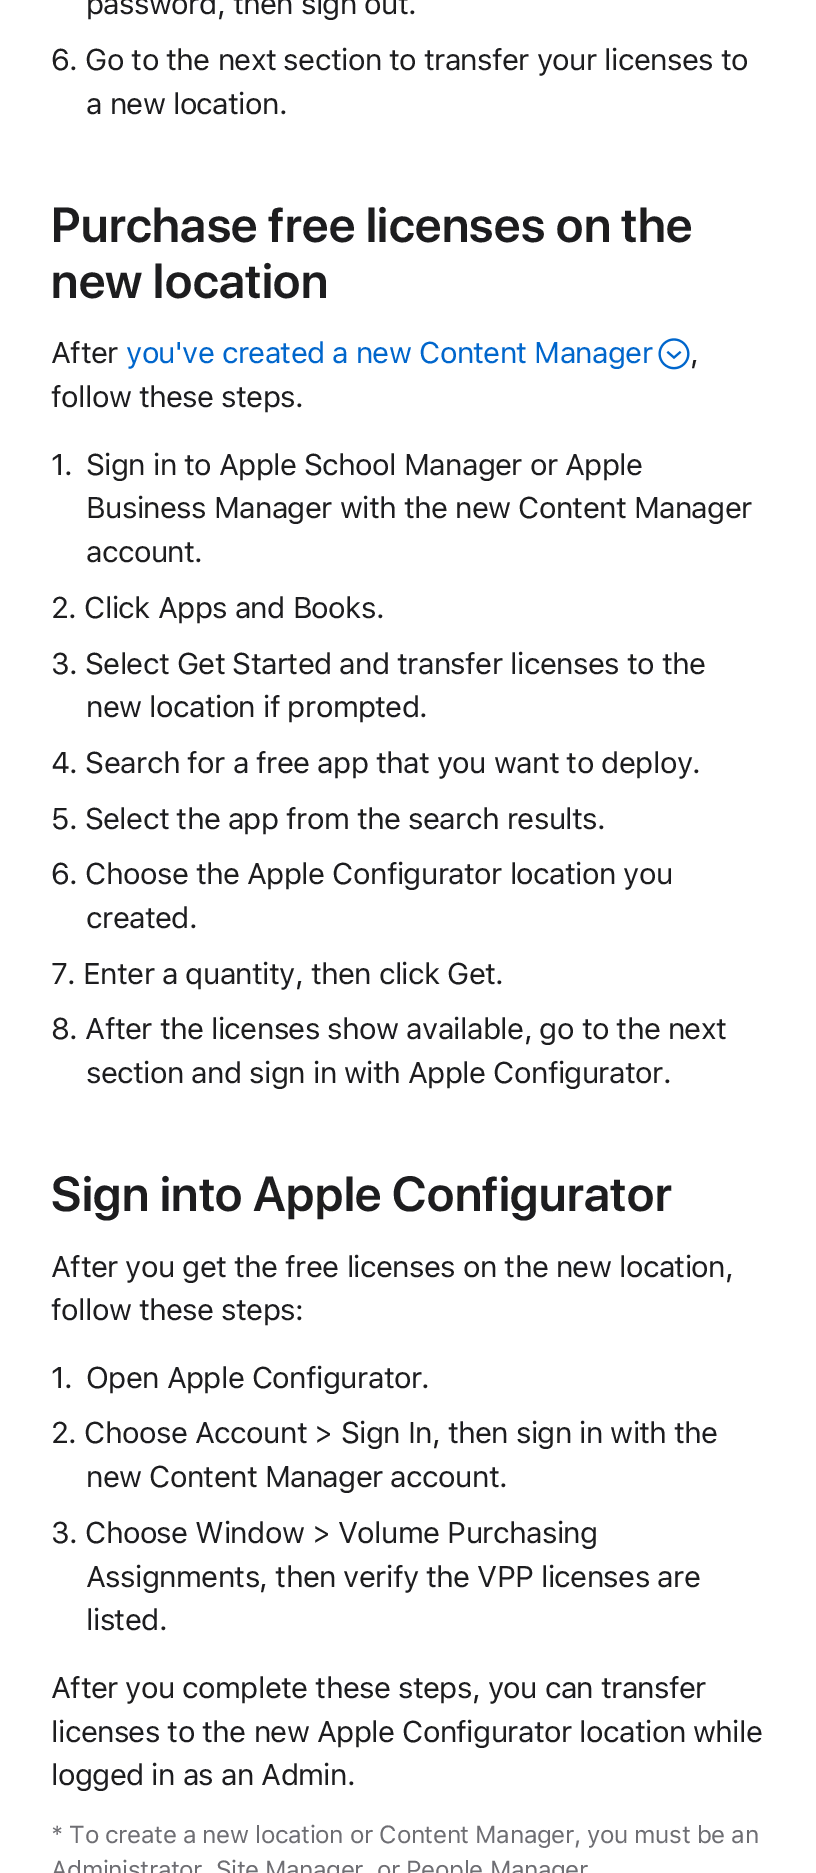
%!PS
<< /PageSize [816 1873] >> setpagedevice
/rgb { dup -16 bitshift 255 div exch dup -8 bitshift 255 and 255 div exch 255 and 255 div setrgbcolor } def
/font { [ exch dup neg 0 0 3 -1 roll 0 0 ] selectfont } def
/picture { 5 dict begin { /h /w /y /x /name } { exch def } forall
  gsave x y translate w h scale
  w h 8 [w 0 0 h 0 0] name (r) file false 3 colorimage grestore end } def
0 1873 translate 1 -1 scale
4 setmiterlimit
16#FFFFFF rgb
0 0 816 1873 rectfill
/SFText-Regular 29.75 font
16#1D1D1F rgb
86 14 moveto -0.65 0 (password, then sign out.) ashow
51 70 moveto -0.65 0 (6. Go to the next section to transfer your licenses to) ashow
86 114 moveto -0.65 0 (a new location.) ashow
/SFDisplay-SemiBold 49 font
51 242 moveto 0.35 0 (Purchase free licenses on the) ashow
51 298 moveto 0.35 0 (new location) ashow
/SFText-Regular 29.75 font
51 363 moveto -0.65 0 (After) ashow
16#0066CC rgb
126 363 moveto -0.65 0 (you've created a new Content Manager) ashow
(pic1.raw) 658 338 32 32 picture
16#1D1D1F rgb
690 363 moveto -0.65 0 (,) ashow
51 407 moveto -0.65 0 (follow these steps.) ashow
51 475 moveto -0.65 0 (1.) ashow
86 475 moveto -0.65 0 (Sign in to Apple School Manager or Apple) ashow
86 518 moveto -0.65 0 (Business Manager with the new Content Manager) ashow
86 562 moveto -0.65 0 (account.) ashow
51 618 moveto -0.65 0 (2. Click Apps and Books.) ashow
51 674 moveto -0.65 0 (3. Select Get Started and transfer licenses to the) ashow
86 717 moveto -0.65 0 (new location if prompted.) ashow
51 773 moveto -0.65 0 (4. Search for a free app that you want to deploy.) ashow
51 829 moveto -0.65 0 (5. Select the app from the search results.) ashow
51 884 moveto -0.65 0 (6. Choose the Apple Configurator location you) ashow
86 928 moveto -0.65 0 (created.) ashow
51 984 moveto -0.65 0 (7. Enter a quantity, then click Get.) ashow
51 1039 moveto -0.65 0 (8. After the licenses show available, go to the next) ashow
86 1083 moveto -0.65 0 (section and sign in with Apple Configurator.) ashow
/SFDisplay-SemiBold 49 font
51 1211 moveto 0.35 0 (Sign into Apple Configurator) ashow
/SFText-Regular 29.75 font
51 1277 moveto -0.65 0 (After you get the free licenses on the new location,) ashow
51 1320 moveto -0.65 0 (follow these steps:) ashow
51 1388 moveto -0.65 0 (1.) ashow
86 1388 moveto -0.65 0 (Open Apple Configurator.) ashow
51 1443 moveto -0.65 0 (2. Choose Account > Sign In, then sign in with the) ashow
86 1487 moveto -0.65 0 (new Content Manager account.) ashow
51 1543 moveto -0.65 0 (3. Choose Window > Volume Purchasing) ashow
86 1587 moveto -0.65 0 (Assignments, then verify the VPP licenses are) ashow
86 1630 moveto -0.65 0 (listed.) ashow
51 1698 moveto -0.65 0 (After you complete these steps, you can transfer) ashow
51 1742 moveto -0.65 0 (licenses to the new Apple Configurator location while) ashow
51 1785 moveto -0.65 0 (logged in as an Admin.) ashow
/SFText-Regular 24.5 font
16#6E6E73 rgb
51 1843 moveto -0.4 0 (* To create a new location or Content Manager, you must be an) ashow
51 1878 moveto -0.4 0 (Administrator, Site Manager, or People Manager) ashow
showpage
